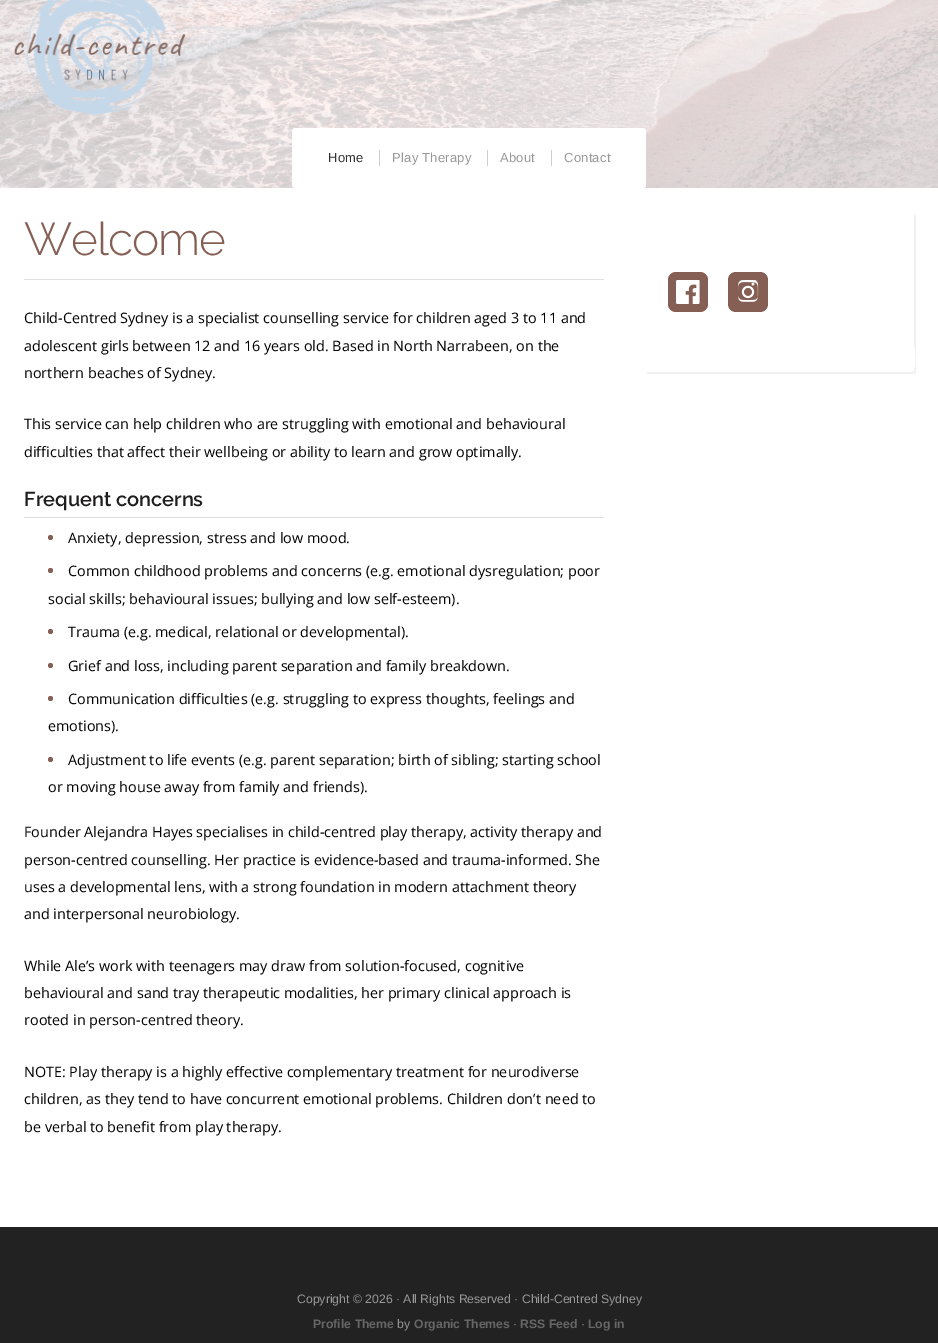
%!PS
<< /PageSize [938 1343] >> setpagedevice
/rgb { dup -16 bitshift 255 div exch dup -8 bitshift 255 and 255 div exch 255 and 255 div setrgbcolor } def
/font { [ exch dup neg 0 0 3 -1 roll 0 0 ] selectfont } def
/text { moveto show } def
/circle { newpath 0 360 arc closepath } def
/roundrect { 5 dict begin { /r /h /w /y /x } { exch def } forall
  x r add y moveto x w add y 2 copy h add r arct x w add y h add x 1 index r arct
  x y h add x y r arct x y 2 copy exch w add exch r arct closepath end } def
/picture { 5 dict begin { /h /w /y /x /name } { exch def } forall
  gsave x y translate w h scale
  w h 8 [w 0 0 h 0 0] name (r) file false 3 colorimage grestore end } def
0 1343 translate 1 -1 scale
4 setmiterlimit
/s1 { /OpenSans-Regular 14.4 font 16#000000 rgb } def
/s2 { /Raleway-SemiBold 20 font 16#1F1D1D rgb } def
/s3 { /LiberationSans-Regular 12.25 font 16#999999 rgb } def
/s4 { /LiberationSans-Bold 12.25 font 16#666666 rgb } def
16#FFFFFF rgb
0 0 938 1343 rectfill
(pic1.raw) 0 0 938 188 picture
(pic2.raw) 13 0 173 116 picture
292 128 354 60 3 roundrect fill
/LiberationSans-Regular 13 font
16#333333 rgb
328 162 moveto 0.25 0 (Home) ashow
16#CCCCCC rgb
379 150 1 16 rectfill
16#999999 rgb
392 162 moveto 0.25 0 (Play Therapy) ashow
16#CCCCCC rgb
487 150 1 16 rectfill
16#999999 rgb
500 162 moveto 0.25 0 (About) ashow
16#CCCCCC rgb
551 150 1 16 rectfill
16#999999 rgb
564 162 moveto 0.25 0 (Contact) ashow
16#E0E0E0 rgb
24 279 580 1 rectfill
/Raleway-Light 46 font
16#855F54 rgb
24 255 moveto -1 0 (Welcome) ashow
s1
(Child-Centred Sydney is a specialist counselling service for children aged 3 to 11 and) 24 323 text
(adolescent girls between 12 and 16 years old. Based in North Narrabeen, on the) 24 351 text
(northern beaches of Sydney.) 24 378 text
(This service can help children who are struggling with emotional and behavioural) 24 429 text
(difficulties that affect their wellbeing or ability to learn and grow optimally.) 24 457 text
16#E0E0E0 rgb
24 517 580 1 rectfill
s2
(Frequent concerns) 24 506 text
16#855F54 rgb
50.5 537.5 2.5 circle fill
s1
(Anxiety, depression, stress and low mood.) 68 543 text
16#855F54 rgb
50.5 570.5 2.5 circle fill
s1
(Common childhood problems and concerns \(e.g. emotional dysregulation; poor) 68 576 text
(social skills; behavioural issues; bullying and low self-esteem\).) 48 604 text
16#855F54 rgb
50.5 631.5 2.5 circle fill
s1
(Trauma \(e.g. medical, relational or developmental\).) 68 637 text
16#855F54 rgb
50.5 665.5 2.5 circle fill
s1
(Grief and loss, including parent separation and family breakdown.) 68 671 text
16#855F54 rgb
50.5 698.5 2.5 circle fill
s1
(Communication difficulties \(e.g. struggling to express thoughts, feelings and) 68 704 text
(emotions\).) 48 731 text
16#855F54 rgb
50.5 759.5 2.5 circle fill
s1
(Adjustment to life events \(e.g. parent separation; birth of sibling; starting school) 68 765 text
(or moving house away from family and friends\).) 48 792 text
(Founder Alejandra Hayes specialises in child-centred play therapy, activity therapy and) 24 837 text
(person-centred counselling. Her practice is evidence-based and trauma-informed. She) 24 865 text
(uses a developmental lens, with a strong foundation in modern attachment theory) 24 892 text
(and interpersonal neurobiology.) 24 919 text
(While Ale’s work with teenagers may draw from solution-focused, cognitive) 24 971 text
(behavioural and sand tray therapeutic modalities, her primary clinical approach is) 24 998 text
(rooted in person-centred theory.) 24 1025 text
(NOTE: Play therapy is a highly effective complementary treatment for neurodiverse) 24 1077 text
(children, as they tend to have concurrent emotional problems. Children don’t need to) 24 1104 text
(be verbal to benefit from play therapy.) 24 1132 text
16#F0F0F0 rgb
646 372 moveto 647 373 648 374 649 374 curveto 913 374 lineto 915 374 916 373 916 371 curveto 916 217 lineto 916 216 915 215 914 214 curveto 914 343 lineto 914 343 919 372 911 372 curveto closepath fill
16#FFFFFF rgb
644 212 270 160 3 roundrect fill
16#855F54 rgb
668 272 40 40 8 roundrect fill
(pic3.raw) 676 280 24 24 picture
728 272 40 40 8 roundrect fill
(pic4.raw) 738 280 21 22 picture
16#222222 rgb
0 1227 938 116 rectfill
s3
(Copyright © 2026 · All Rights Reserved · Child-Centred Sydney) 297 1303 text
s4
(Profile Theme) 313 1328 text
s3
(by) 397 1328 text
s4
(Organic Themes) 414 1328 text
s3
(·) 513 1328 text
s4
(RSS Feed) 520 1328 text
s3
(·) 581 1328 text
s4
(Log in) 588 1328 text
showpage
